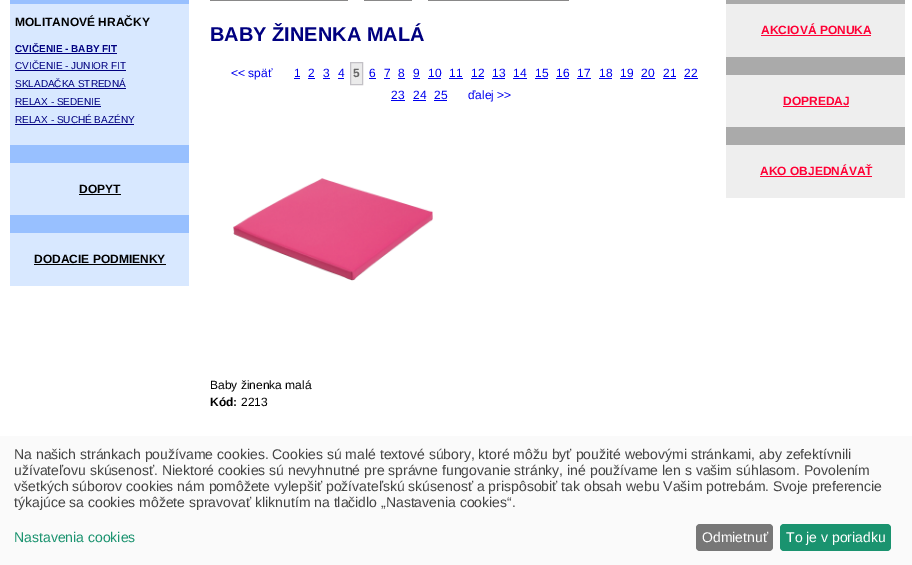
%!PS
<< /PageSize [912 565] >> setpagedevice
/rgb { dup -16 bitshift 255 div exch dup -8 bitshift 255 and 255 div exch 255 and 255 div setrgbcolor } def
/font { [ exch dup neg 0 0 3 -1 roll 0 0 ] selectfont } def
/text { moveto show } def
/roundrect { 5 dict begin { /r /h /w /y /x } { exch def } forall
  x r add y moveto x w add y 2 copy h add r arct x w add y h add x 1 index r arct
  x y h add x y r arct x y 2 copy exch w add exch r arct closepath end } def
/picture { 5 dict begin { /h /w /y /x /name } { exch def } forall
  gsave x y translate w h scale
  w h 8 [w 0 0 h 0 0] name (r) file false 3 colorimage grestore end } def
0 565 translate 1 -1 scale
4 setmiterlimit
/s1 { /LiberationSans-Bold 12 font 16#000000 rgb } def
/s2 { /LiberationSans-Bold 10 font 16#000080 rgb } def
/s3 { /LiberationSans-Regular 10 font 16#000080 rgb } def
/s4 { /LiberationSans-Bold 20 font 16#000080 rgb } def
/s5 { /LiberationSans-Regular 12 font 16#0000EE rgb } def
/s6 { /LiberationSans-Bold 12 font 16#676767 rgb } def
/s7 { /LiberationSans-Regular 12 font 16#000000 rgb } def
/s8 { /LiberationSans-Bold 12 font 16#FF0035 rgb } def
/s9 { /LiberationSans-Regular 14 font 16#444444 rgb } def
/s10 { /LiberationSans-Regular 14 font 16#1A936F rgb } def
/s11 { /LiberationSans-Regular 14 font 16#FFFFFF rgb } def
16#FFFFFF rgb
0 0 912 565 rectfill
16#D8E8FF rgb
10 4 179 141 rectfill
16#98C0FF rgb
10 0 179 4 rectfill
s1
(MOLITANOVÉ HRAČKY) 15 26 text
s2
(CVIČENIE - BABY FIT) 15 52 text
15 53 102 1 rectfill
s3
(CVIČENIE - JUNIOR FIT) 15 69 text
15 70 111 1 rectfill
(SKLADAČKA STREDNÁ) 15 87 text
15 88 111 1 rectfill
(RELAX - SEDENIE) 15 105 text
15 106 86 1 rectfill
(RELAX - SUCHÉ BAZÉNY) 15 123 text
15 124 119 1 rectfill
16#98C0FF rgb
10 145 179 18 rectfill
16#D8E8FF rgb
10 163 179 52 rectfill
s1
(DOPYT) 79 193 text
79 194 42 1 rectfill
16#98C0FF rgb
10 215 179 18 rectfill
16#D8E8FF rgb
10 233 179 53 rectfill
s1
(DODACIE PODMIENKY) 34 263 text
34 264 132 1 rectfill
16#898888 rgb
210 0 138 1 rectfill
364 0 48 1 rectfill
428 0 141 1 rectfill
s4
(BABY ŽINENKA MALÁ) 210 41 text
s5
(<< späť) 231 77 text
(1) 294 77 text
294 78 6 1 rectfill
(2) 308 77 text
308 78 7 1 rectfill
(3) 323 77 text
323 78 7 1 rectfill
(4) 338 77 text
338 78 6 1 rectfill
16#EBEBEB rgb
350.5 62.5 moveto 362.5 62.5 lineto 362.5 84.5 lineto 350.5 84.5 lineto closepath gsave fill grestore
16#C3C1C6 rgb
stroke
s6
(5) 353 77 text
s5
(6) 369 77 text
369 78 7 1 rectfill
(7) 384 77 text
384 78 6 1 rectfill
(8) 398 77 text
398 78 7 1 rectfill
(9) 413 77 text
413 78 7 1 rectfill
(10) 428 77 text
428 78 13 1 rectfill
(11) 449 77 text
449 78 14 1 rectfill
(12) 471 77 text
471 78 13 1 rectfill
(13) 492 77 text
492 78 13 1 rectfill
(14) 513 77 text
513 78 14 1 rectfill
(15) 535 77 text
535 78 13 1 rectfill
(16) 556 77 text
556 78 13 1 rectfill
(17) 577 77 text
577 78 14 1 rectfill
(18) 599 77 text
599 78 13 1 rectfill
(19) 620 77 text
620 78 13 1 rectfill
(20) 641 77 text
641 78 14 1 rectfill
(21) 663 77 text
663 78 13 1 rectfill
(22) 684 77 text
684 78 14 1 rectfill
(23) 391 99 text
391 100 14 1 rectfill
(24) 413 99 text
413 100 13 1 rectfill
(25) 434 99 text
434 100 13 1 rectfill
(ďalej >>) 468 99 text
(pic1.raw) 233 178 200 103 picture
s7
(Baby žinenka malá) 210 389 text
s1
(Kód:) 210 406 text
s7
(2213) 241 406 text
16#EEEEEE rgb
726 4 179 53 rectfill
16#AAAAAA rgb
726 0 179 4 rectfill
s8
(AKCIOVÁ PONUKA) 761 34 text
761 35 110 1 rectfill
16#EEEEEE rgb
726 75 179 52 rectfill
16#AAAAAA rgb
726 57 179 18 rectfill
s8
(DOPREDAJ) 783 105 text
783 106 66 1 rectfill
16#EEEEEE rgb
726 145 179 53 rectfill
16#AAAAAA rgb
726 127 179 18 rectfill
s8
(AKO OBJEDNÁVAŤ) 760 175 text
760 176 112 1 rectfill
16#FAFAFA rgb
0 436 912 129 rectfill
s9
(Na našich stránkach používame cookies. Cookies sú malé textové súbory, ktoré môžu byť použité webovými stránkami, aby zefektívnili) 14 459 text
(užívateľovu skúsenosť. Niektoré cookies sú nevyhnutné pre správne fungovanie stránky, iné používame len s vašim súhlasom. Povolením) 14 475 text
(všetkých súborov cookies nám pomôžete vylepšiť požívateľskú skúsenosť a prispôsobiť tak obsah webu Vašim potrebám. Svoje preferencie) 14 491 text
(týkajúce sa cookies môžete spravovať kliknutím na tlačidlo „Nastavenia cookies“.) 14 507 text
s10
(Nastavenia cookies) 14 542 text
16#777777 rgb
696 524 77 27 4 roundrect fill
s11
(Odmietnuť) 702 542 text
16#1A936F rgb
780 524 111 27 4 roundrect fill
s11
(To je v poriadku) 786 542 text
showpage
